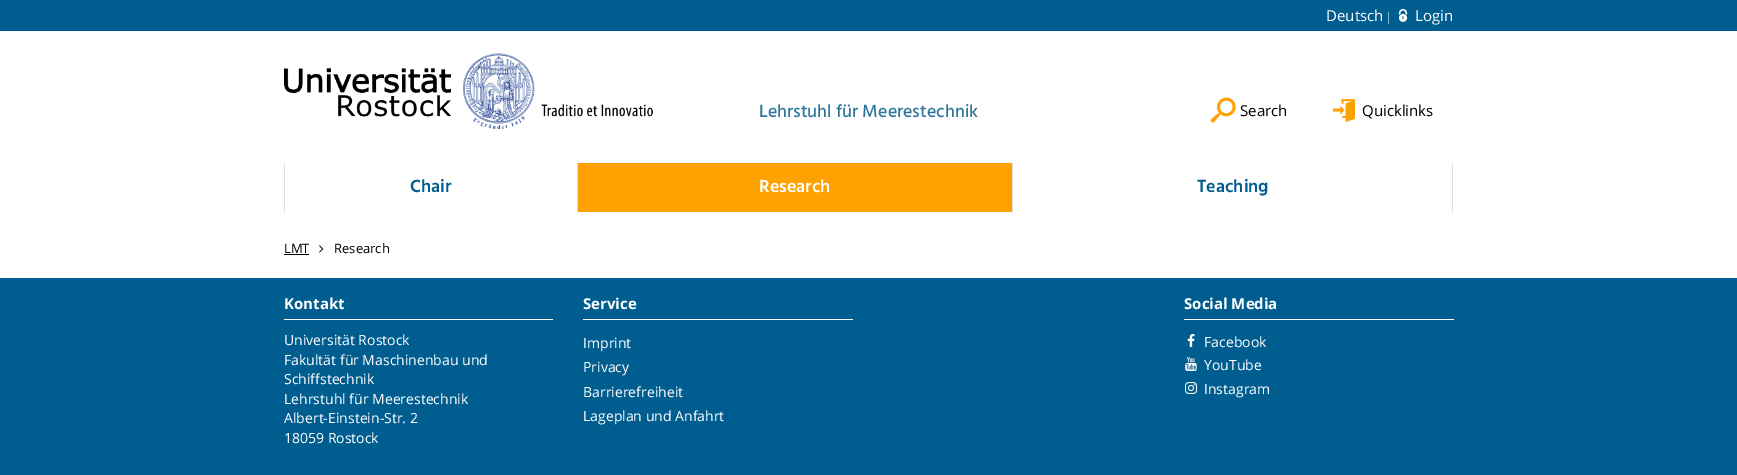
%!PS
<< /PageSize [1737 475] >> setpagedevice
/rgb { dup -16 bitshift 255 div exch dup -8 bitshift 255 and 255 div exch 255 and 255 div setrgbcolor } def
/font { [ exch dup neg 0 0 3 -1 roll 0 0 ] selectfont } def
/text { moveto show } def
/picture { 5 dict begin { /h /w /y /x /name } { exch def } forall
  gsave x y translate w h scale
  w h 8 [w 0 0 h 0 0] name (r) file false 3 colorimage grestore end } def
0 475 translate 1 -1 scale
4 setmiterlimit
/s1 { /OpenSans-Regular 15 font 16#FFFFFF rgb } def
/s2 { /LiberationSerif-Regular 13 font 16#FFFFFF rgb } def
/s3 { /Hind-Medium 18 font 16#2F769C rgb } def
/s4 { /OpenSans-Regular 15 font 16#000000 rgb } def
/s5 { /Hind-SemiBold 18 font 16#005D8F rgb } def
/s6 { /Hind-SemiBold 18 font 16#FFFFFF rgb } def
/s7 { /OpenSans-Regular 13 font 16#000000 rgb } def
/s8 { /OpenSans-Bold 15 font 16#FFFFFF rgb } def
/s9 { /OpenSans-Regular 14 font 16#FFFFFF rgb } def
16#FFFFFF rgb
0 0 1737 475 rectfill
16#005D8F rgb
0 0 1737 31 rectfill
s1
(Deutsch) 1326 21 text
s2
(|) 1387 21 text
(pic1.raw) 1398 8 10 14 picture
s1
(Login) 1415 21 text
(pic2.raw) 284 53 369 76 picture
s3
(Lehrstuhl für Meerestechnik) 759 117 text
(pic3.raw) 1210 97 26 26 picture
s4
(Search) 1240 116 text
(pic4.raw) 1333 99 22 23 picture
(Quicklinks) 1362 116 text
16#DFDFDF rgb
284 163 1 50 rectfill
s5
(Chair) 410 192 text
16#DFDFDF rgb
577 163 1 50 rectfill
16#FFA100 rgb
578 163 434 49 rectfill
s6
(Research) 759 192 text
16#DFDFDF rgb
1452 163 1 50 rectfill
1012 163 1 50 rectfill
s5
(Teaching) 1197 192 text
s7
(LMT) 284 253 text
284 254 25 1 rectfill
(pic5.raw) 319 245 5 8 picture
(Research) 334 253 text
16#005D8F rgb
0 278 1737 197 rectfill
16#FFFFFF rgb
284 319 269 1 rectfill
s8
(Kontakt) 284 309 text
s9
(Universität Rostock) 284 345 text
(Fakultät für Maschinenbau und) 284 365 text
(Schiffstechnik) 284 384 text
(Lehrstuhl für Meerestechnik) 284 404 text
(Albert-Einstein-Str. 2) 284 423 text
(18059 Rostock) 284 443 text
583 319 270 1 rectfill
s8
(Service) 583 309 text
s9
(Imprint) 583 348 text
(Privacy) 583 372 text
(Barrierefreiheit) 583 397 text
(Lageplan und Anfahrt) 583 421 text
1184 319 270 1 rectfill
s8
(Social Media) 1184 309 text
(pic6.raw) 1187 334 8 13 picture
s9
(Facebook) 1204 347 text
(pic7.raw) 1185 357 12 14 picture
(YouTube) 1204 370 text
(pic8.raw) 1185 382 12 12 picture
(Instagram) 1204 394 text
showpage
